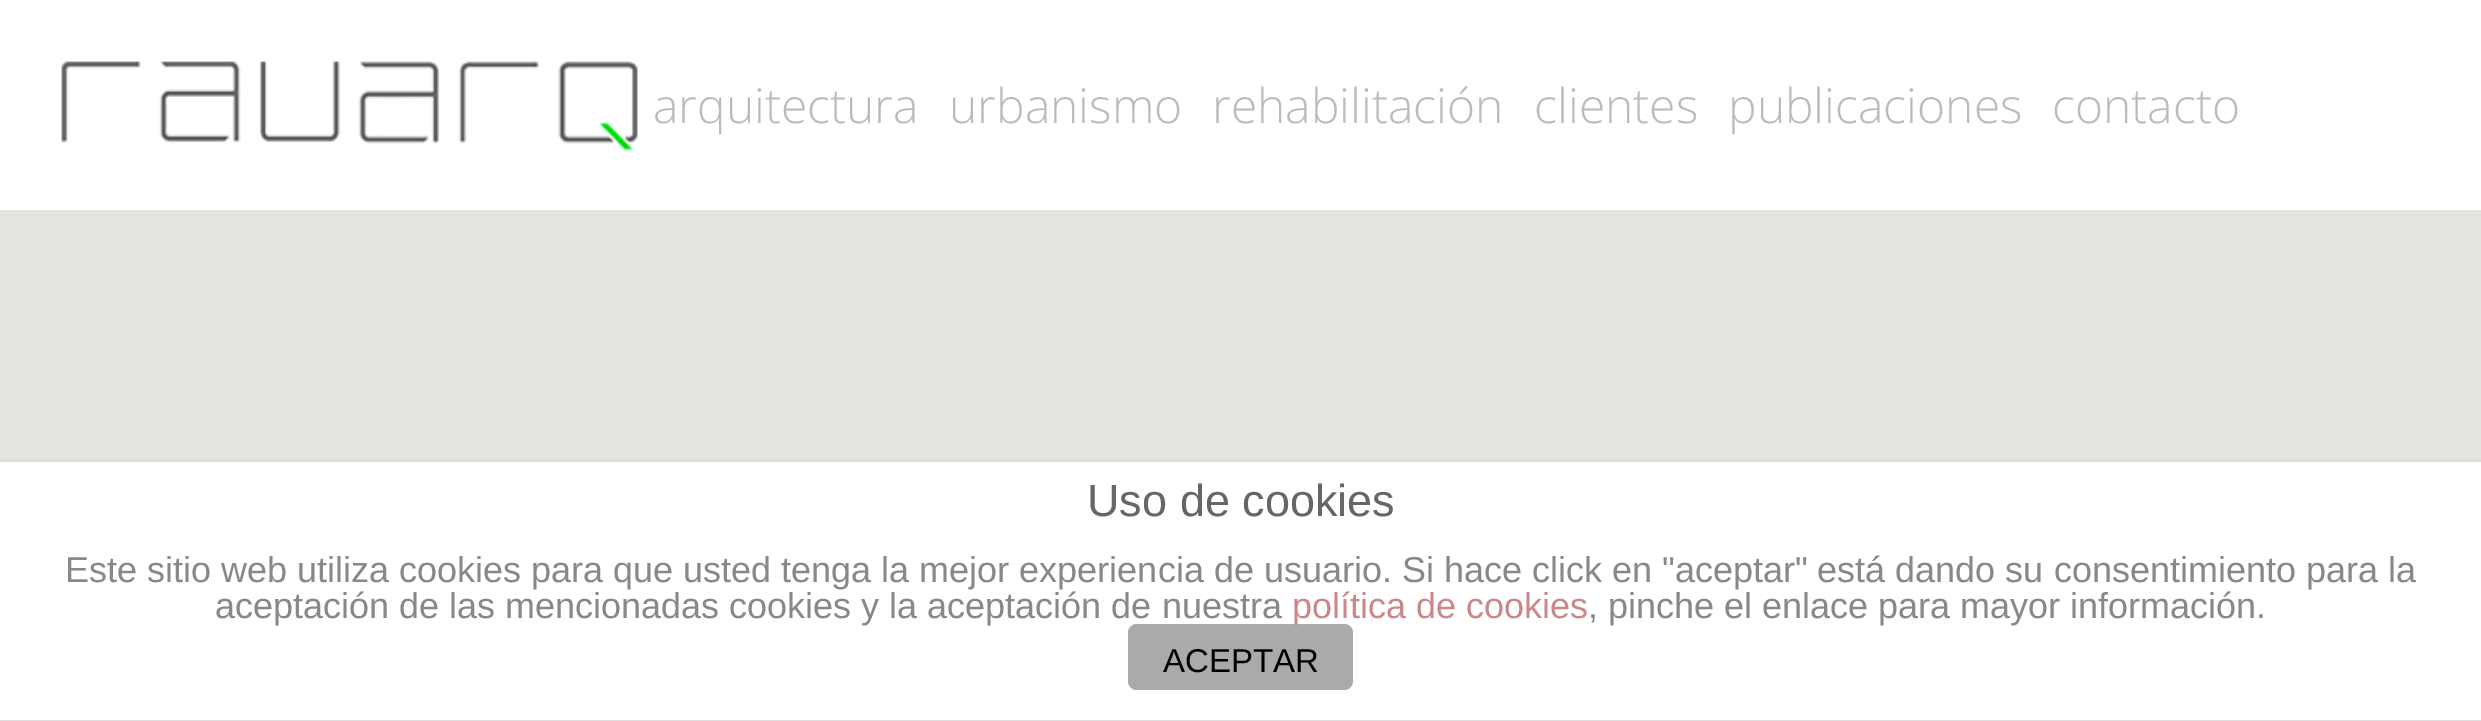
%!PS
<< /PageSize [2481 721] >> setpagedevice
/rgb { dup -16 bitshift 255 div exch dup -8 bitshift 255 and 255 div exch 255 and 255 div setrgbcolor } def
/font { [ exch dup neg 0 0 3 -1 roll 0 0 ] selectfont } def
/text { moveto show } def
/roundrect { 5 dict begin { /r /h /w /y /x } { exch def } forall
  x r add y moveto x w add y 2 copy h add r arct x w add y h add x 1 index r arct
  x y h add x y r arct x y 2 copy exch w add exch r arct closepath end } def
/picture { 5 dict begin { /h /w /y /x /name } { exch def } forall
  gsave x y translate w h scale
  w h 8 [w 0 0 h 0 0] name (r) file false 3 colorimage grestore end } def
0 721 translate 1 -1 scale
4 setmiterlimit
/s1 { /OpenSans-Light 48 font 16#BBBBBB rgb } def
/s2 { /LiberationSans-Regular 45 font 16#666666 rgb } def
/s3 { /LiberationSans-Regular 36 font 16#888888 rgb } def
/s4 { /LiberationSans-Regular 36 font 16#CC8888 rgb } def
/s5 { /LiberationSans-Regular 33 font 16#000000 rgb } def
16#FFFFFF rgb
0 0 2481 721 rectfill
(pic1.raw) 61 61 577 90 picture
s1
(arquitectura) 653 123 text
(urbanismo) 949 123 text
(rehabilitación) 1212 123 text
(clientes) 1534 123 text
(publicaciones) 1728 123 text
(contacto) 2052 123 text
16#E5E3DF rgb
0 210 2481 249 rectfill
16#DDDDDD rgb
0 459 2481 3 rectfill
0 720 2481 1 rectfill
s2
(Uso de cookies) 1087 516 text
s3
(Este sitio web utiliza cookies para que usted tenga la mejor experiencia de usuario. Si hace click en "aceptar" está dando su consentimiento para la) 65 582 text
16#AAAAAA rgb
1128 624 225 66 9 roundrect fill
s3
(aceptación de las mencionadas cookies y la aceptación de nuestra) 215 618 text
s4
(política de cookies) 1292 618 text
s3
(, pinche el enlace para mayor información.) 1588 618 text
s5
(ACEPTAR) 1163 672 text
showpage
